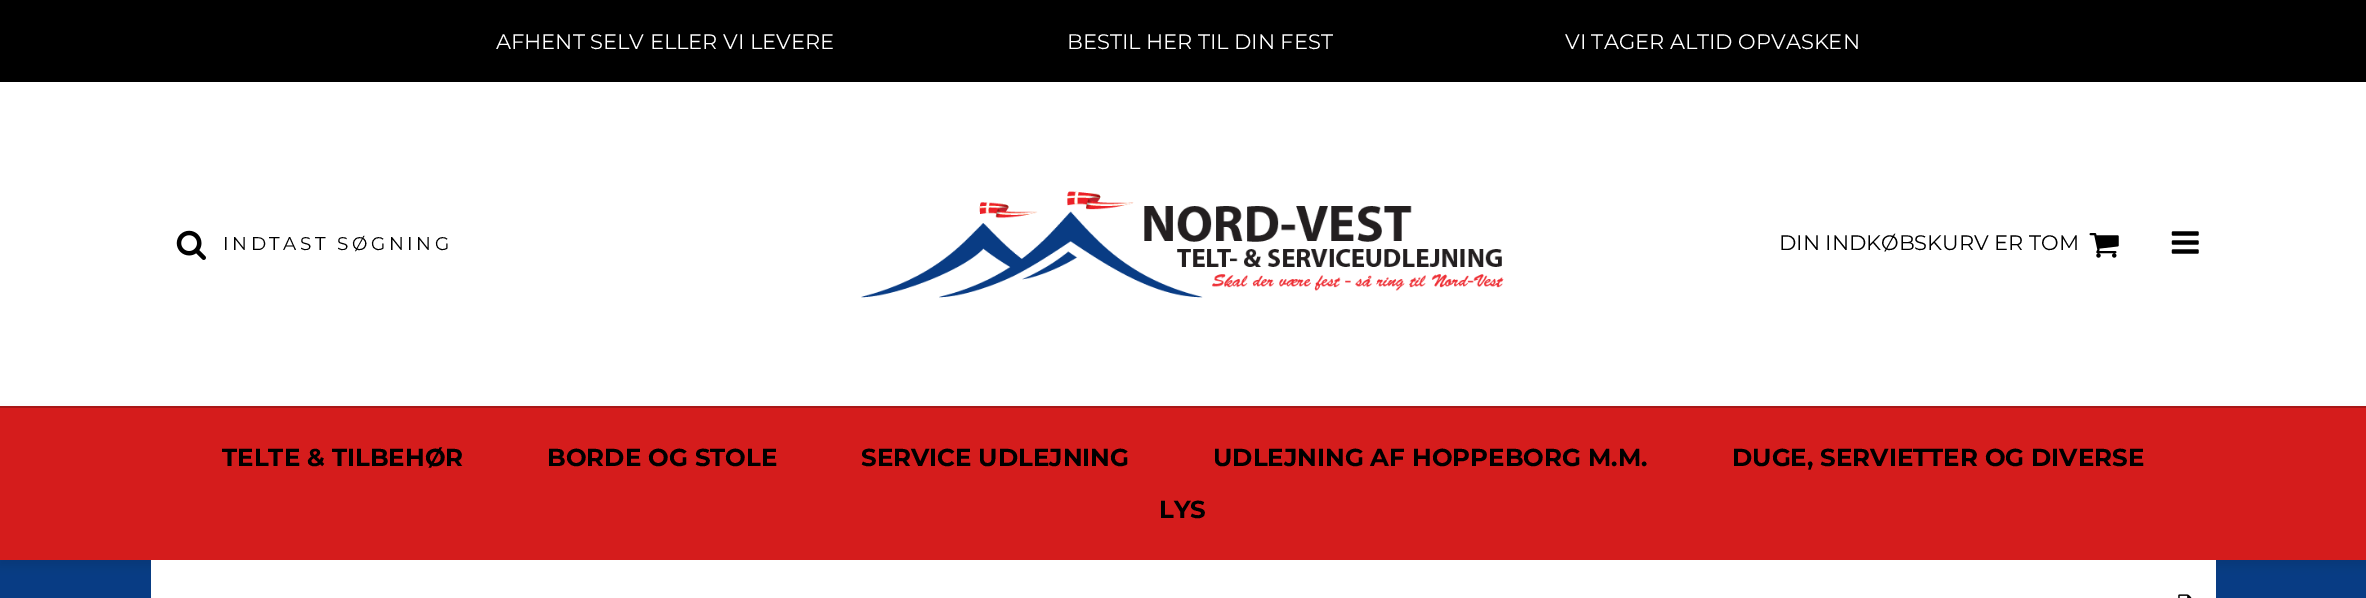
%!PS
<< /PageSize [2366 598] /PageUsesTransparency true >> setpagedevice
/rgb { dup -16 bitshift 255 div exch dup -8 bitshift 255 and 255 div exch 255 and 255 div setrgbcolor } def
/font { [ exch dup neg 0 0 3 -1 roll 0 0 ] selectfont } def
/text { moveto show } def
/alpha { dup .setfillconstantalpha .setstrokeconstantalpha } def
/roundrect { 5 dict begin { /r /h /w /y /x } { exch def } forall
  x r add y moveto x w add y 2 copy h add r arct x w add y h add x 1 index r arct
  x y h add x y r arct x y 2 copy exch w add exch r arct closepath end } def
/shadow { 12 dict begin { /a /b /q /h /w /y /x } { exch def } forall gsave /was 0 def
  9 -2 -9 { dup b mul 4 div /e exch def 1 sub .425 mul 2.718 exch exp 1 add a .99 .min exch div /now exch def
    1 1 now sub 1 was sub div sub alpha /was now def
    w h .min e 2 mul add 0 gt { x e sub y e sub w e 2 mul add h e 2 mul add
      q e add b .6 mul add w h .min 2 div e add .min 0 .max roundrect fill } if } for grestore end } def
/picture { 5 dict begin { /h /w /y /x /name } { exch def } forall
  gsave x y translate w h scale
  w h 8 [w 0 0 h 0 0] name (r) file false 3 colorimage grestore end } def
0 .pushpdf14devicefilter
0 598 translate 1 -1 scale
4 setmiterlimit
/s1 { /Montserrat-Regular 21 font 16#FFFFFF rgb } def
/s2 { /Montserrat-Regular 21 font 16#000000 rgb } def
/s3 { /Montserrat-Bold 24.5 font 16#000000 rgb } def
16#083C84 rgb
0 0 2366 598 rectfill
16#000000 rgb
0 0 2366 82 rectfill
s1
(AFHENT SELV ELLER VI LEVERE) 496 49 text
(BESTIL HER TIL DIN FEST) 1067 49 text
(VI TAGER ALTID OPVASKEN) 1565 49 text
0 82 2366 324 rectfill
(pic1.raw) 176 230 30 30 picture
/Montserrat-Regular 18.4 font
16#000000 rgb
223 250 moveto 3.5 0 (INDTAST SØGNING) ashow
(pic2.raw) 861 191 643 107 picture
s2
(DIN INDKØBSKURV ER TOM) 1779 250 text
(pic3.raw) 2089 233 30 25 picture
(pic4.raw) 2171 231 28 23 picture
0 411 2366 154 0 4.5 0.08 shadow
16#D51C1C rgb
0 408 2366 152 rectfill
16#A81616 rgb
0 406 2366 2 rectfill
s3
(TELTE & TILBEHØR) 222 466 text
(BORDE OG STOLE) 547 466 text
(SERVICE UDLEJNING) 861 466 text
(UDLEJNING AF HOPPEBORG M.M.) 1213 466 text
(DUGE, SERVIETTER OG DIVERSE) 1732 466 text
(LYS) 1159 518 text
16#FFFFFF rgb
151 560 2065 38 rectfill
(pic5.raw) 2178 594 14 4 picture
.poppdf14devicefilter showpage
